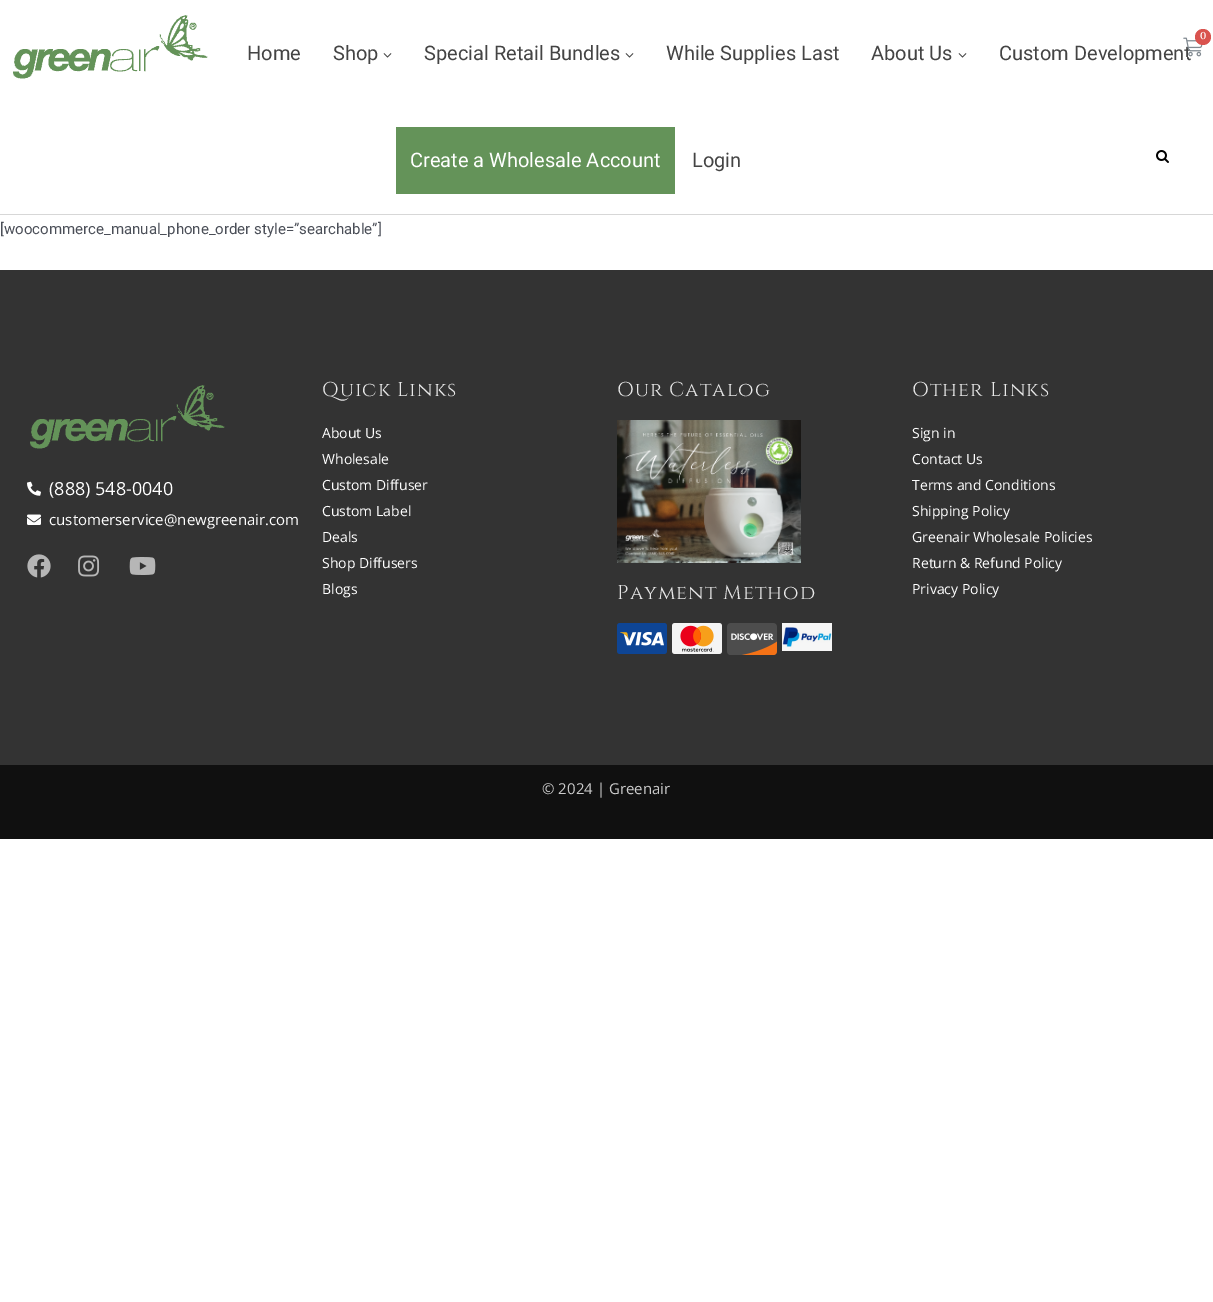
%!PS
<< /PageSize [1213 1302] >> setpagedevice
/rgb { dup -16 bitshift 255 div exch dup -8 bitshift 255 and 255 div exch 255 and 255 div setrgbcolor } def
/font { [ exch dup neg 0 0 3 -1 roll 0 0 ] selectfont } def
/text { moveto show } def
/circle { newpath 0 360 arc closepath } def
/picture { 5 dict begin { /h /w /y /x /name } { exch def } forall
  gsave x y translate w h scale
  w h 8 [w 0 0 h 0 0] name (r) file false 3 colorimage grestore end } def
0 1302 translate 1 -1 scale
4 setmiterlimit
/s1 { /Roboto-Regular 20 font 16#444444 rgb } def
/s2 { /Cinzel-SemiBold 10 font 16#FFFFFF rgb } def
/s3 { /Roboto-Regular 20 font 16#FFFFFF rgb } def
/s4 { /Roboto-Regular 15 font 16#4B4F58 rgb } def
/s5 { /OpenSans-Regular 18 font 16#FFFFFF rgb } def
/s6 { /OpenSans-Regular 15 font 16#FFFFFF rgb } def
/s7 { /OpenSans-Regular 14 font 16#FFFFFF rgb } def
/s8 { /OpenSans-Regular 15 font 16#CBCBCB rgb } def
16#FFFFFF rgb
0 0 1213 1302 rectfill
16#D7D7D7 rgb
0 214 1213 1 rectfill
s1
(Custom Development) 999 60 text
(pic1.raw) 1183 37 20 20 picture
16#D9534F rgb
1203 37 8 circle fill
s2
(0) 1200 39 text
(pic2.raw) 13 15 195 64 picture
s1
(Home) 247 60 text
(Shop) 333 60 text
(pic3.raw) 383 53 9 5 picture
(Special Retail Bundles) 424 60 text
(pic3.raw) 625 53 9 5 picture
(While Supplies Last) 666 60 text
(About Us) 871 60 text
(pic3.raw) 958 53 9 5 picture
16#649359 rgb
396 127 279 67 rectfill
s3
(Create a Wholesale Account) 410 167 text
s1
(Login) 692 167 text
(pic4.raw) 1156 150 13 13 picture
s4
([woocommerce_manual_phone_order style=”searchable”]) 0 234 text
16#333333 rgb
0 270 1213 495 rectfill
(pic5.raw) 30 385 195 64 picture
(pic6.raw) 27 481 14 15 picture
s5
(\(888\) 548-0040) 49 495 text
(pic7.raw) 27 514 14 11 picture
s6
(customerservice@newgreenair.com) 49 525 text
(pic8.raw) 27 554 24 24 picture
(pic9.raw) 78 555 22 22 picture
(pic10.raw) 129 557 27 18 picture
/Cinzel-Regular 20 font
16#E7E7E7 rgb
322 396 moveto 1 0 (Quick Links) ashow
s7
(About Us) 322 438 text
(Wholesale) 322 464 text
(Custom Diffuser) 322 490 text
(Custom Label) 322 516 text
(Deals) 322 542 text
(Shop Diffusers) 322 568 text
(Blogs) 322 594 text
/Cinzel-Regular 20 font
16#E7E7E7 rgb
617 396 moveto 1 0 (Our Catalog) ashow
(pic11.raw) 617 420 184 143 picture
617 599 moveto 1 0 (Payment Method) ashow
(pic12.raw) 617 623 50 31 picture
(pic13.raw) 672 623 50 31 picture
(pic14.raw) 727 623 50 32 picture
(pic15.raw) 782 623 50 28 picture
912 396 moveto 1 0 (Other Links) ashow
s7
(Sign in) 912 438 text
(Contact Us) 912 464 text
(Terms and Conditions) 912 490 text
(Shipping Policy) 912 516 text
(Greenair Wholesale Policies) 912 542 text
(Return & Refund Policy) 912 568 text
(Privacy Policy) 912 594 text
16#101010 rgb
0 765 1213 74 rectfill
s8
(© 2024 | Greenair) 542 794 text
showpage
